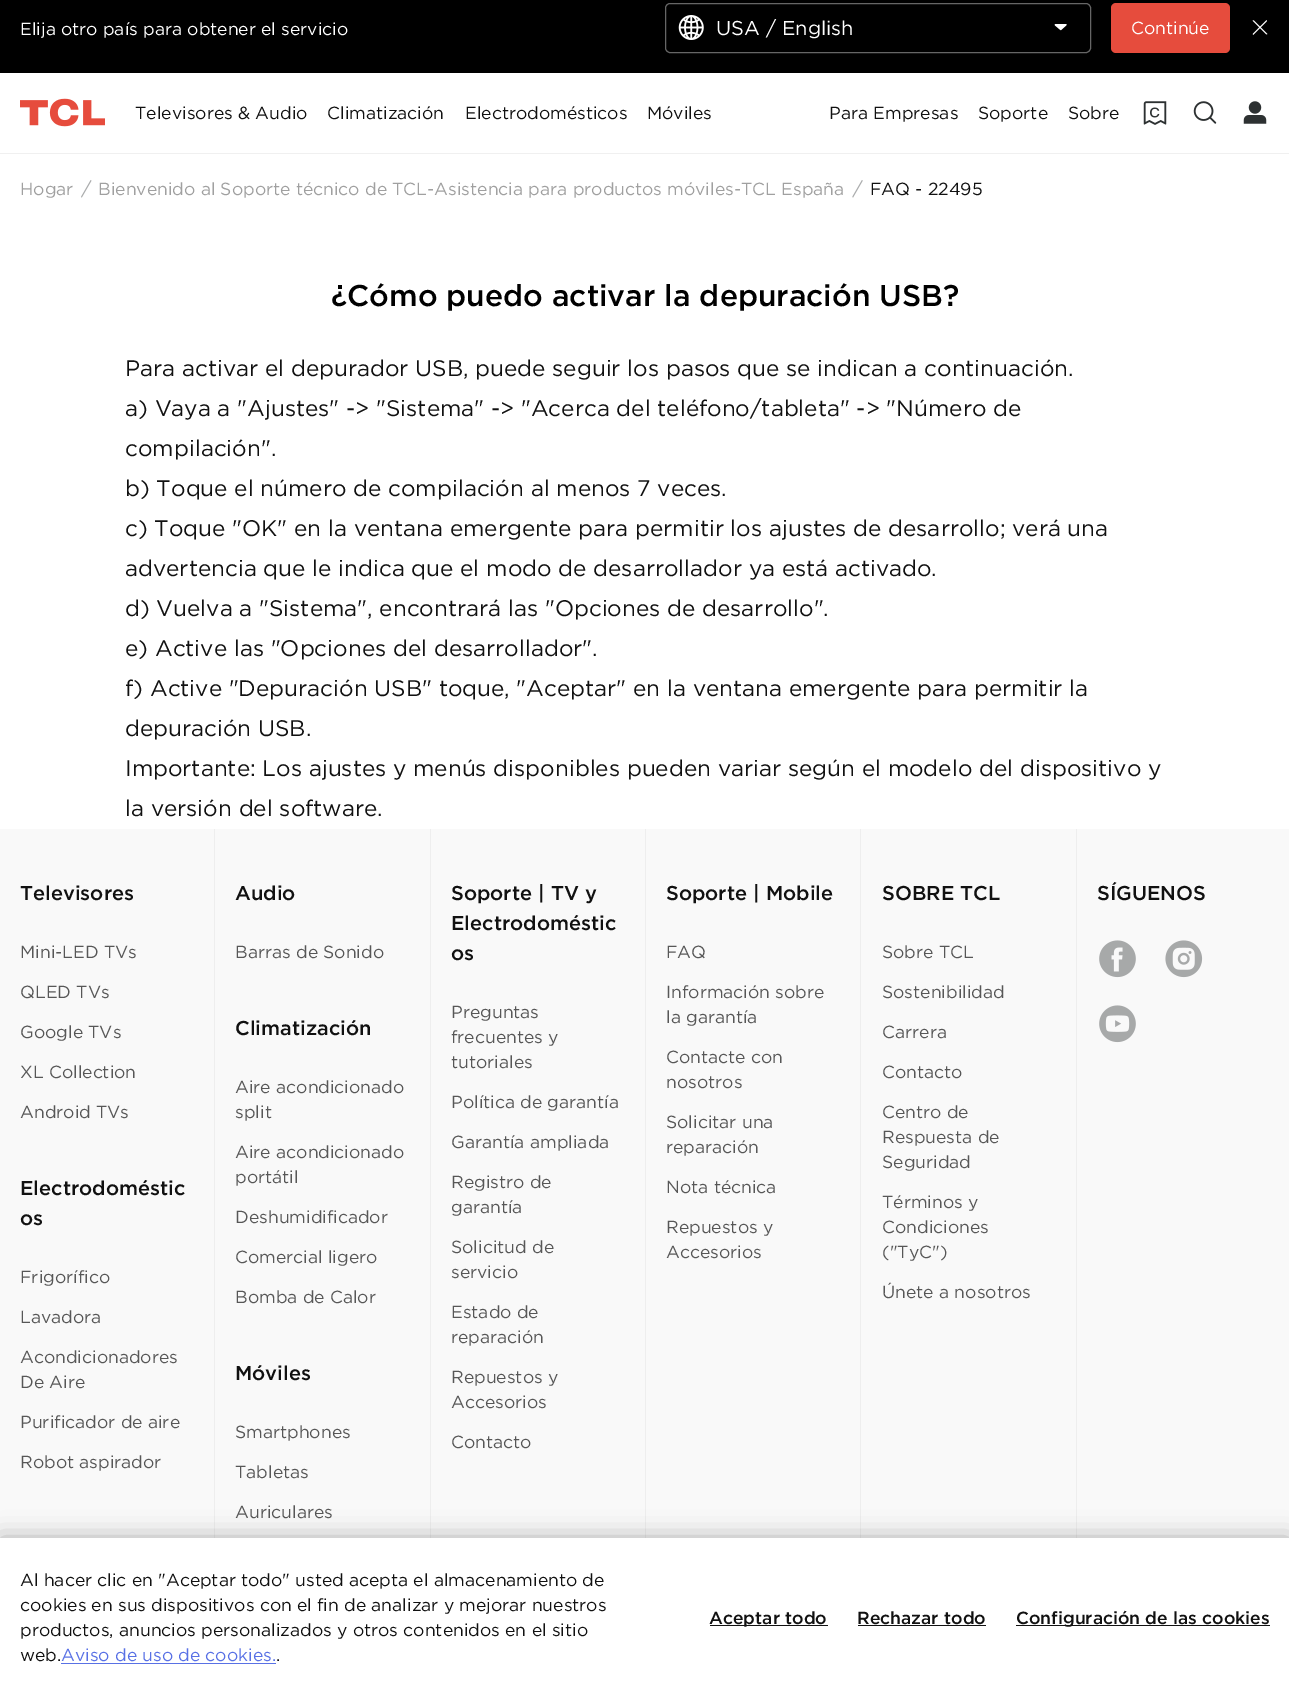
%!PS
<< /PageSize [1289 1697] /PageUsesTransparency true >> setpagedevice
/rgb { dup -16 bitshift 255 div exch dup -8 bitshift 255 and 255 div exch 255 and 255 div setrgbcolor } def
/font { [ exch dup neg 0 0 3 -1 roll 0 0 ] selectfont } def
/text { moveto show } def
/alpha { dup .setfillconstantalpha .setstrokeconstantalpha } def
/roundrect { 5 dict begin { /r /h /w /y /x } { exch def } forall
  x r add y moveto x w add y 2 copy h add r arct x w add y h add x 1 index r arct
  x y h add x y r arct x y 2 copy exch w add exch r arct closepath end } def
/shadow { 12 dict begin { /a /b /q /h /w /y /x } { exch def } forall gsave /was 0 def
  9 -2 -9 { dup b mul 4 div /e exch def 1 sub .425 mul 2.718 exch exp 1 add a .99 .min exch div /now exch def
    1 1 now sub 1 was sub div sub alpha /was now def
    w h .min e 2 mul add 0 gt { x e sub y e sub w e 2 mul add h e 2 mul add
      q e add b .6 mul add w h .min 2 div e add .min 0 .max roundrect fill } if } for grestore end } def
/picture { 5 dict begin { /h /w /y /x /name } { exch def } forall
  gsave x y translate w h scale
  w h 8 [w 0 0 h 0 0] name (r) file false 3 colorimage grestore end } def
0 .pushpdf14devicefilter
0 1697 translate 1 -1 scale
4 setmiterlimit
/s1 { /Gotham-Regular 17.5 font 16#FFFFFF rgb } def
/s2 { /Gotham-Regular 20 font 16#FFFFFF rgb } def
/s3 { /Gotham-Regular 17.5 font 16#111111 rgb } def
/s4 { /Gotham-Regular 17.5 font 16#A0A0A0 rgb } def
/s5 { /Gotham-Medium 30 font 16#000000 rgb } def
/s6 { /Gotham-Regular 22.5 font 16#111111 rgb } def
/s7 { /Gotham-Medium 20 font 16#111111 rgb } def
/s8 { /Gotham-Regular 17.5 font 16#575757 rgb } def
/s9 { /Gotham-Regular 17.5 font 16#5971E5 rgb } def
/s10 { /Gotham-Medium 17.5 font 16#111111 rgb } def
16#FFFFFF rgb
0 0 1289 1697 rectfill
16#000000 rgb
0 0 1289 73 rectfill
s1
(Elija otro país para obtener el servicio) 20 35 text
16#666666 rgb
665.5 3.5 425 49 4.5 roundrect stroke
(pic1.raw) 678 15 26 25 picture
s2
(USA / English) 716 35 text
(pic2.raw) 1054 24 13 7 picture
16#E64C3D rgb
1111 3 119 50 5 roundrect fill
s1
(Continúe) 1131 34 text
(pic3.raw) 1252 20 16 15 picture
16#F0F0F0 rgb
0 153 1289 1 rectfill
(pic4.raw) 20 98 85 29 picture
s3
(Televisores & Audio) 135 119 text
(Climatización) 327 119 text
(Electrodomésticos) 465 119 text
(Móviles) 647 119 text
(Para Empresas) 829 119 text
(Soporte) 978 119 text
(Sobre) 1068 119 text
(pic5.raw) 1143 101 24 24 picture
(pic6.raw) 1193 101 24 23 picture
(pic7.raw) 1243 101 24 23 picture
s4
(Hogar) 20 195 text
(pic8.raw) 81 180 11 18 picture
(Bienvenido al Soporte técnico de TCL-Asistencia para productos móviles-TCL España) 98 195 text
(pic9.raw) 852 180 11 18 picture
s3
(FAQ - 22495) 870 195 text
s5
(¿Cómo puedo activar la depuración USB?) 331 306 text
s6
(Para activar el depurador USB, puede seguir los pasos que se indican a continuación.) 125 376 text
(a\) Vaya a "Ajustes" -> "Sistema" -> "Acerca del teléfono/tableta" -> "Número de) 125 416 text
(compilación".) 125 456 text
(b\) Toque el número de compilación al menos 7 veces.) 125 496 text
(c\) Toque "OK" en la ventana emergente para permitir los ajustes de desarrollo; verá una) 125 536 text
(advertencia que le indica que el modo de desarrollador ya está activado.) 125 576 text
(d\) Vuelva a "Sistema", encontrará las "Opciones de desarrollo".) 125 616 text
(e\) Active las "Opciones del desarrollador".) 125 656 text
(f\) Active "Depuración USB" toque, "Aceptar" en la ventana emergente para permitir la) 125 696 text
(depuración USB.) 125 736 text
(Importante: Los ajustes y menús disponibles pueden variar según el modelo del dispositivo y) 125 776 text
(la versión del software.) 125 816 text
16#F9F9F9 rgb
0 829 1289 709 rectfill
16#EEEEEE rgb
214 829 1 709 rectfill
s7
(Televisores) 20 900 text
s8
(Mini-LED TVs) 20 958 text
(QLED TVs) 20 998 text
(Google TVs) 20 1038 text
(XL Collection) 20 1078 text
(Android TVs) 20 1118 text
s7
(Electrodoméstic) 20 1195 text
(os) 20 1225 text
s8
(Frigorífico) 20 1283 text
(Lavadora) 20 1323 text
(Acondicionadores) 20 1363 text
(De Aire) 20 1388 text
(Purificador de aire) 20 1428 text
(Robot aspirador) 20 1468 text
16#EEEEEE rgb
430 829 1 709 rectfill
s7
(Audio) 235 900 text
s8
(Barras de Sonido) 235 958 text
s7
(Climatización) 235 1035 text
s8
(Aire acondicionado) 235 1093 text
(split) 235 1118 text
(Aire acondicionado) 235 1158 text
(portátil) 235 1183 text
(Deshumidificador) 235 1223 text
(Comercial ligero) 235 1263 text
(Bomba de Calor) 235 1303 text
s7
(Móviles) 235 1380 text
s8
(Smartphones) 235 1438 text
(Tabletas) 235 1478 text
(Auriculares) 235 1518 text
16#EEEEEE rgb
645 829 1 709 rectfill
s7
(Soporte | TV y) 451 900 text
(Electrodoméstic) 451 930 text
(os) 451 960 text
s8
(Preguntas) 451 1018 text
(frecuentes y) 451 1043 text
(tutoriales) 451 1068 text
(Política de garantía) 451 1108 text
(Garantía ampliada) 451 1148 text
(Registro de) 451 1188 text
(garantía) 451 1213 text
(Solicitud de) 451 1253 text
(servicio) 451 1278 text
(Estado de) 451 1318 text
(reparación) 451 1343 text
(Repuestos y) 451 1383 text
(Accesorios) 451 1408 text
(Contacto) 451 1448 text
16#EEEEEE rgb
860 829 1 709 rectfill
s7
(Soporte | Mobile) 666 900 text
s8
(FAQ) 666 958 text
(Información sobre) 666 998 text
(la garantía) 666 1023 text
(Contacte con) 666 1063 text
(nosotros) 666 1088 text
(Solicitar una) 666 1128 text
(reparación) 666 1153 text
(Nota técnica) 666 1193 text
(Repuestos y) 666 1233 text
(Accesorios) 666 1258 text
16#EEEEEE rgb
1076 829 1 709 rectfill
s7
(SOBRE TCL) 882 900 text
s8
(Sobre TCL) 882 958 text
(Sostenibilidad) 882 998 text
(Carrera) 882 1038 text
(Contacto) 882 1078 text
(Centro de) 882 1118 text
(Respuesta de) 882 1143 text
(Seguridad) 882 1168 text
(Términos y) 882 1208 text
(Condiciones) 882 1233 text
(\("TyC"\)) 882 1258 text
(Únete a nosotros) 882 1298 text
s7
(SÍGUENOS) 1097 900 text
(pic10.raw) 1099 940 37 38 picture
(pic11.raw) 1165 940 38 38 picture
(pic12.raw) 1099 1005 37 38 picture
16#000000 rgb
0 1538 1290 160 0 12.5 0.3 shadow
16#FFFFFF rgb
0 1538 1289 159 rectfill
s3
(Al hacer clic en "Aceptar todo" usted acepta el almacenamiento de) 20 1586 text
(cookies en sus dispositivos con el fin de analizar y mejorar nuestros) 20 1611 text
(productos, anuncios personalizados y otros contenidos en el sitio) 20 1636 text
(web.) 20 1661 text
s9
(Aviso de uso de cookies.) 61 1661 text
61 1663 215 1 rectfill
s3
(.) 276 1661 text
710 1625 118 1 rectfill
s10
(Aceptar todo) 709 1624 text
(Rechazar todo) 857 1624 text
858 1625 128 1 rectfill
1016 1625 254 1 rectfill
(Configuración de las cookies) 1016 1624 text
.poppdf14devicefilter showpage
